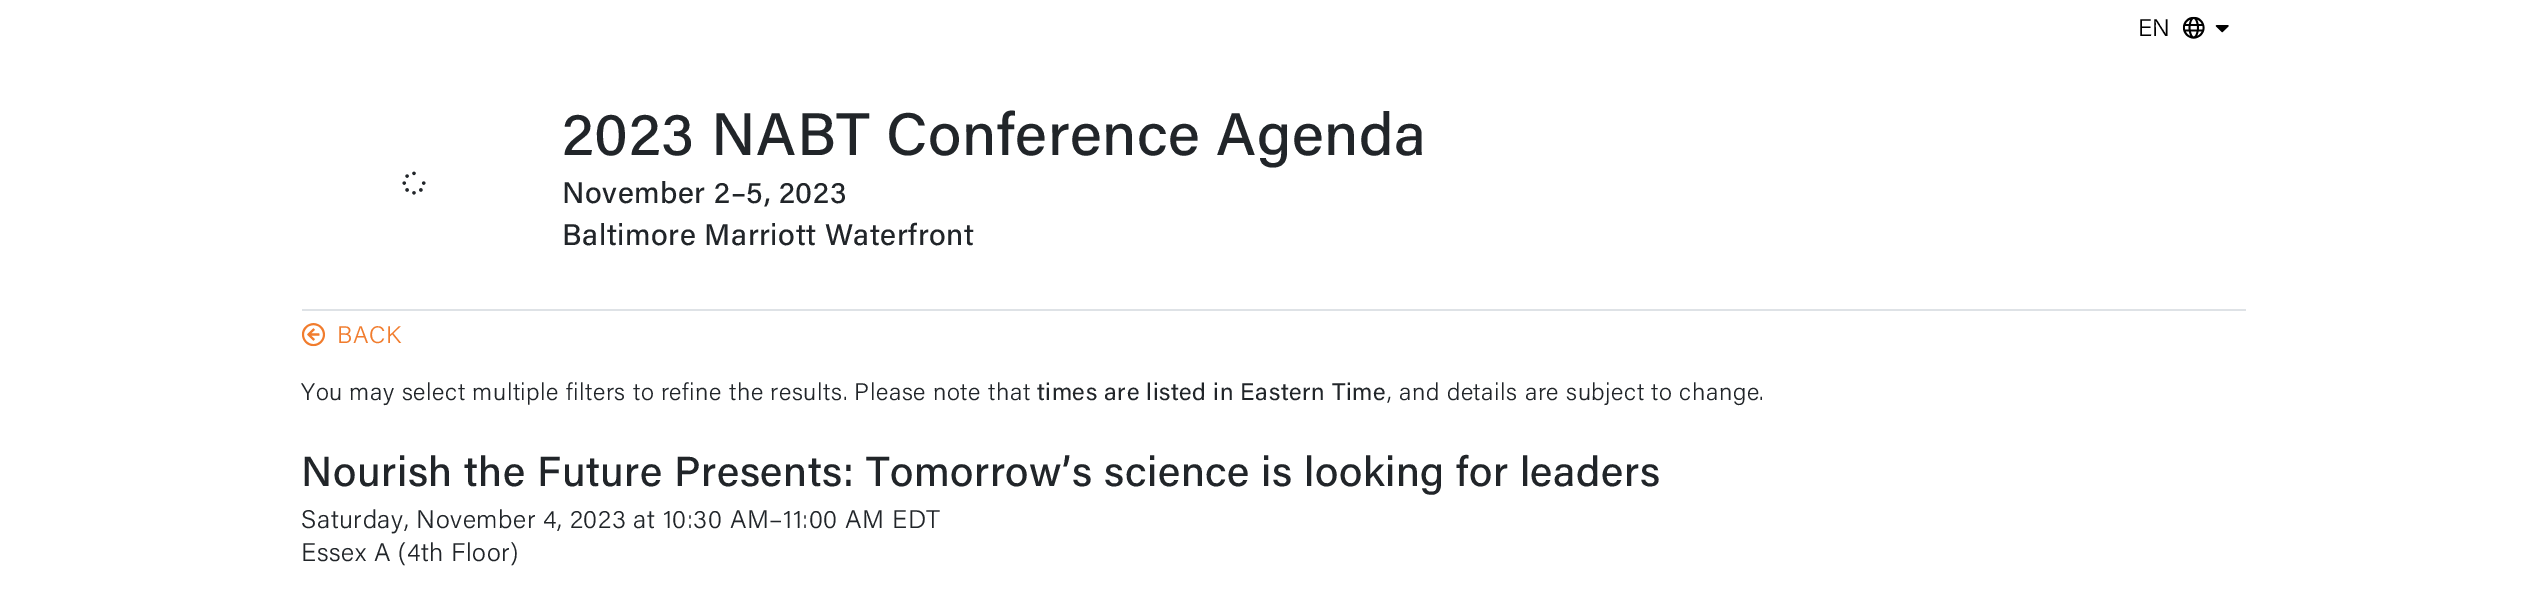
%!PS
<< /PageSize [2545 590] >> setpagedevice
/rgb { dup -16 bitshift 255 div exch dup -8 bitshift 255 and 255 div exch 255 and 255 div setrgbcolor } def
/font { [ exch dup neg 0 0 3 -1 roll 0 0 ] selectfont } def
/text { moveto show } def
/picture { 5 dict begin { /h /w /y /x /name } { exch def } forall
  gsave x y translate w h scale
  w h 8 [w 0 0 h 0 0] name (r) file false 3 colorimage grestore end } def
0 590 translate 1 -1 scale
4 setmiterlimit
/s1 { /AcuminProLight-Light 24 font 16#000000 rgb } def
16#FFFFFF rgb
0 0 2545 590 rectfill
s1
(EN) 2138 36 text
(pic1.raw) 2182 16 23 23 picture
(pic2.raw) 2215 25 14 8 picture
16#DEE2E6 rgb
302 309 1944 2 rectfill
(pic3.raw) 402 171 24 24 picture
/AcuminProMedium-Medium 60 font
16#212529 rgb
562 155 moveto 0.6 0 (2023 NABT Conference Agenda) ashow
/AcuminProMedium-Medium 30 font
562 203 moveto 0.6 0 (November 2–5, 2023) ashow
562 245 moveto 0.6 0 (Baltimore Marriott Waterfront) ashow
(pic4.raw) 301 323 25 24 picture
/AcuminProLight-Light 24 font
16#F17C2D rgb
337 343 moveto 0.6 0 (BACK) ashow
16#212529 rgb
301 400 moveto 0.6 0 (You may select multiple filters to refine the results. Please note that) ashow
/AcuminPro-Regular 24 font
1037 400 moveto 0.6 0 (times are listed in Eastern Time) ashow
/AcuminProLight-Light 24 font
1387 400 moveto 0.6 0 (, and details are subject to change.) ashow
/AcuminProMedium-Medium 42 font
301 486 moveto 0.6 0 (Nourish the Future Presents: Tomorrow’s science is looking for leaders) ashow
/AcuminProLight-Light 25.5 font
301 528 moveto 0.6 0 (Saturday, November 4, 2023 at 10:30 AM–11:00 AM EDT) ashow
301 561 moveto 0.6 0 (Essex A \(4th Floor\)) ashow
showpage
